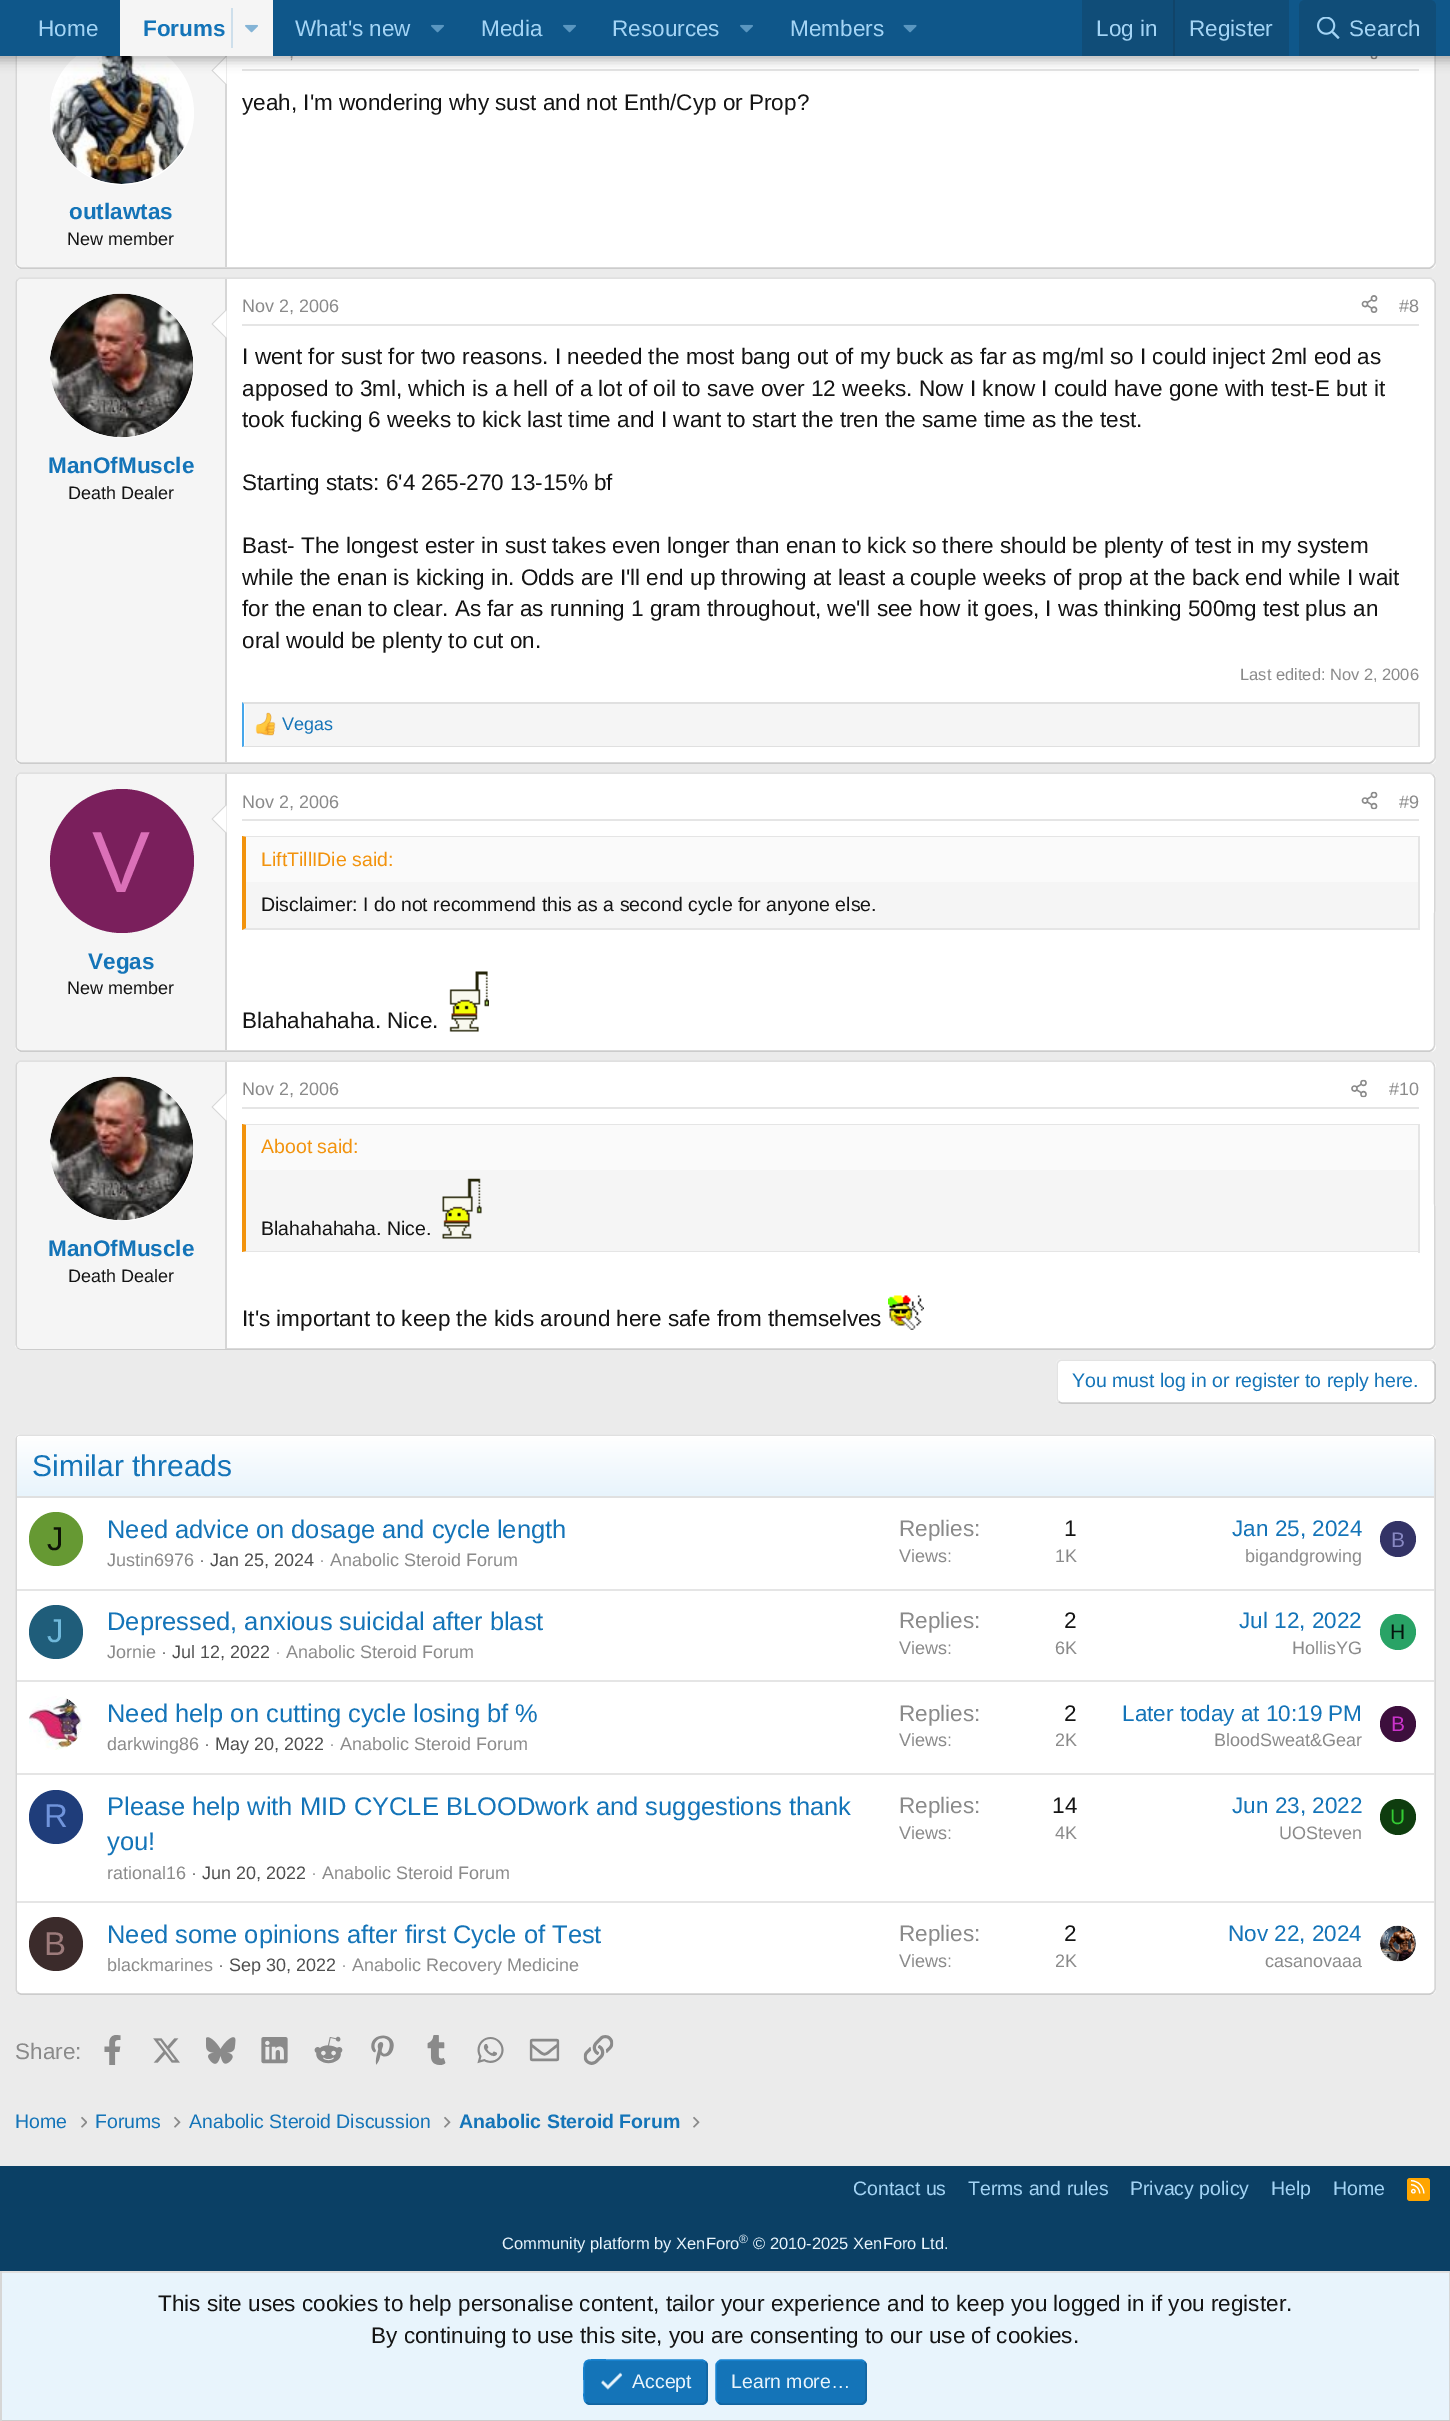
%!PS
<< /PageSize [1450 2421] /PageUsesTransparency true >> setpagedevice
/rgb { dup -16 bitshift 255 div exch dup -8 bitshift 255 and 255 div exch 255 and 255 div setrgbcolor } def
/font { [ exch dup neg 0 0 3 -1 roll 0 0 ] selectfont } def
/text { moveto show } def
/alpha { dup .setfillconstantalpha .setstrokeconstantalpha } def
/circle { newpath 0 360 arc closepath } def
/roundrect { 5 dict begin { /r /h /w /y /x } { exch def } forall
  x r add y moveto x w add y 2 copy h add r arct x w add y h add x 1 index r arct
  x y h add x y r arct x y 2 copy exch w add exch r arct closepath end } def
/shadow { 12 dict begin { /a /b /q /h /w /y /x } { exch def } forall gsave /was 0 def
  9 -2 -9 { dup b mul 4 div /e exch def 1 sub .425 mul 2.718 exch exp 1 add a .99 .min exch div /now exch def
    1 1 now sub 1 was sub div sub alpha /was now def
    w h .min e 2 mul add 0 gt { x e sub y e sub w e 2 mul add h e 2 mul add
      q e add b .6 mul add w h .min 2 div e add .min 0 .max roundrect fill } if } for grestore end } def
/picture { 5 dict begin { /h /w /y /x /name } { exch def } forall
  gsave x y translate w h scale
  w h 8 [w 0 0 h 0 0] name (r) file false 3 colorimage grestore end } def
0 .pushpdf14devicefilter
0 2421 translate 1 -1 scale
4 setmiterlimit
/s1 { /LiberationSans-Regular 22.5 font 16#A3D4F5 rgb } def
/s2 { /LiberationSans-Bold 22.5 font 16#1474B8 rgb } def
/s3 { /LiberationSans-Regular 18 font 16#8A8A8A rgb } def
/s4 { /LiberationSans-Regular 22.5 font 16#141414 rgb } def
/s5 { /LiberationSans-Regular 18 font 16#141414 rgb } def
/s6 { /LiberationSans-Regular 16.5 font 16#8A8A8A rgb } def
/s7 { /LiberationSans-Regular 18 font 16#1474B8 rgb } def
/s8 { /LiberationSans-Regular 87 font 16#DB70B8 rgb } def
/s9 { /LiberationSans-Regular 19.5 font 16#F2930D rgb } def
/s10 { /LiberationSans-Regular 19.5 font 16#141414 rgb } def
/s11 { /LiberationSans-Regular 19.5 font 16#1474B8 rgb } def
/s12 { /LiberationSans-Regular 30 font 16#1474B8 rgb } def
/s13 { /LiberationSans-Regular 33 font 16#0D1306 rgb } def
/s14 { /LiberationSans-Regular 25.5 font 16#1474B8 rgb } def
/s15 { /LiberationSans-Regular 18 font 16#4F4F4F rgb } def
/s16 { /LiberationSans-Regular 22.5 font 16#8A8A8A rgb } def
/s17 { /LiberationSans-Regular 22.5 font 16#1474B8 rgb } def
/s18 { /LiberationSans-Regular 21 font 16#8888C3 rgb } def
/s19 { /LiberationSans-Regular 33 font 16#70B9DB rgb } def
/s20 { /LiberationSans-Regular 21 font 16#05140D rgb } def
/s21 { /LiberationSans-Regular 21 font 16#CC33CC rgb } def
/s22 { /LiberationSans-Regular 33 font 16#7094DB rgb } def
/s23 { /LiberationSans-Regular 21 font 16#33CC33 rgb } def
/s24 { /LiberationSans-Regular 33 font 16#9D7B7B rgb } def
/s25 { /LiberationSans-Bold 19.5 font 16#1474B8 rgb } def
/s26 { /LiberationSans-Regular 19.5 font 16#A3D4F5 rgb } def
/s27 { /LiberationSans-Regular 16.5 font 16#E8F4FC rgb } def
/s28 { /LiberationSans-Regular 12 font 16#E8F4FC rgb } def
/s29 { /LiberationSans-Regular 19.5 font 16#E8F4FC rgb } def
16#EBEBEB rgb
0 0 1450 2421 rectfill
16#FFFFFF rgb
15 24 1421 245 6 roundrect fill
16#D6D6D6 rgb
1.5 setlinewidth
1433 26.5 moveto 1434 27.5 1435 28.5 1435 30 curveto 1435 262.5 lineto 1435 264 1434 265 1433 266 curveto stroke
16#CCCCCC rgb
1433 266 moveto 1432 267 1431 268 1429.5 268 curveto 21 268 lineto 19.5 268 18.5 267 17.5 266 curveto stroke
16#D6D6D6 rgb
17.5 266 moveto 16.5 265 16 264 16 262.5 curveto 16 30 lineto 16 28.5 16.5 27.5 17.5 26.5 curveto stroke
16#E5E5E5 rgb
242 69 1177 2 rectfill
(pic5.raw) 1370 56 8 4 picture
16#F5F5F5 rgb
22 26 moveto 227 26 lineto 227 267 lineto 22 267 lineto 19 267 17 265 17 262 curveto 17 31 lineto 17 28 19 26 22 26 curveto closepath fill
16#D6D6D6 rgb
225 56 2 211 rectfill
16#FFFFFF rgb
122 113 72 circle fill
(pic6.raw) 50 56 135 128 picture
16#D6D6D6 rgb
226.5 55.5 moveto 226.5 85.5 lineto 211.5 70.5 lineto closepath fill
16#FFFFFF rgb
226.5 57 moveto 226.5 84 lineto 213 70.5 lineto closepath fill
16#000000 rgb
-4 -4 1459 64 0 6 0.3 shadow
16#0F578A rgb
0 0 1450 56 rectfill
s1
(Home) 38 36 text
16#F5F5F5 rgb
120 0 153 56 rectfill
s2
(Forums) 143 36 text
16#CEDFEB rgb
231 8 2 40 rectfill
(pic1.raw) 245 24 13 9 picture
s1
(What's new) 295 36 text
(pic2.raw) 431 24 13 9 picture
(Media) 481 36 text
(pic2.raw) 563 24 13 9 picture
(Resources) 612 36 text
(pic2.raw) 740 24 13 9 picture
(Members) 790 36 text
(pic3.raw) 903 24 14 9 picture
16#104D78 rgb
1082 0 207 56 rectfill
s1
(Log in) 1096 36 text
16#114469 rgb
1173 0 2 56 rectfill
s1
(Register) 1189 36 text
16#104D78 rgb
1305 0 moveto 1430 0 lineto 1433.5 0 1436 2.5 1436 6 curveto 1436 56 lineto 1299 56 lineto 1299 6 lineto 1299 2.5 1301.5 0 1305 0 curveto closepath fill
(pic4.raw) 1317 17 23 22 picture
s1
(Search) 1349 36 text
s3
(,) 289 58 text
s4
(yeah, I'm wondering why sust and not Enth/Cyp or Prop?) 242 110 text
s2
(outlawtas) 69 219 text
s5
(New member) 67 245 text
16#FFFFFF rgb
15 278 1421 486 6 roundrect fill
16#E0E0E0 rgb
17.5 280 moveto 18.5 279 19.5 278 21 278 curveto 1429.5 278 lineto 1431 278 1432 279 1433 280 curveto stroke
16#D6D6D6 rgb
1433 280 moveto 1434 281 1435 282 1435 283.5 curveto 1435 757.5 lineto 1435 759 1434 760 1433 761 curveto stroke
16#CCCCCC rgb
1433 761 moveto 1432 762 1431 763 1429.5 763 curveto 21 763 lineto 19.5 763 18.5 762 17.5 761 curveto stroke
16#D6D6D6 rgb
17.5 761 moveto 16.5 760 16 759 16 757.5 curveto 16 283.5 lineto 16 282 16.5 281 17.5 280 curveto stroke
16#F5F5F5 rgb
22 279 moveto 227 279 lineto 227 762 lineto 22 762 lineto 19 762 17 760 17 757 curveto 17 284 lineto 17 281 19 279 22 279 curveto closepath fill
16#D6D6D6 rgb
225 279 2 483 rectfill
16#FFFFFF rgb
122 366 72 circle fill
(pic7.raw) 50 293 144 145 picture
16#D6D6D6 rgb
226.5 309 moveto 226.5 339 lineto 211.5 324 lineto closepath fill
16#FFFFFF rgb
226.5 310.5 moveto 226.5 337.5 lineto 213 324 lineto closepath fill
s2
(ManOfMuscle) 48 473 text
s5
(Death Dealer) 68 499 text
16#E5E5E5 rgb
242 324 1177 2 rectfill
s3
(Nov 2, 2006) 242 312 text
(pic8.raw) 1361 295 17 18 picture
(#8) 1399 312 text
s4
(I went for sust for two reasons. I needed the most bang out of my buck as far as mg/ml so I could inject 2ml eod as) 242 364 text
(apposed to 3ml, which is a hell of a lot of oil to save over 12 weeks. Now I know I could have gone with test-E but it) 242 396 text
(took fucking 6 weeks to kick last time and I want to start the tren the same time as the test.) 242 427 text
(Starting stats: 6'4 265-270 13-15% bf) 242 490 text
(Bast- The longest ester in sust takes even longer than enan to kick so there should be plenty of test in my system) 242 553 text
(while the enan is kicking in. Odds are I'll end up throwing at least a couple weeks of prop at the back end while I wait) 242 585 text
(for the enan to clear. As far as running 1 gram throughout, we'll see how it goes, I was thinking 500mg test plus an) 242 616 text
(oral would be plenty to cut on.) 242 648 text
s6
(Last edited: Nov 2, 2006) 1240 680 text
16#F5F5F5 rgb
245 704 1173 42 rectfill
16#E0E0E0 rgb
242 702 moveto 1419 702 lineto 1418 704 lineto 244 704 lineto closepath fill
1418 702 2 45 rectfill
1419 747 moveto 242 747 lineto 244 746 lineto 1418 746 lineto closepath fill
16#47A7EB rgb
242 747 moveto 242 702 lineto 244 704 lineto 244 746 lineto closepath fill
(pic9.raw) 255 712 21 24 picture
s7
(Vegas) 282 730 text
16#FFFFFF rgb
15 773 1421 279 6 roundrect fill
16#E0E0E0 rgb
17.5 775 moveto 18.5 774 19.5 773 21 773 curveto 1429.5 773 lineto 1431 773 1432 774 1433 775 curveto stroke
16#D6D6D6 rgb
1433 775 moveto 1434 776 1434.5 777 1435 778.5 curveto 1434.5 1046 lineto 1433 1049 lineto stroke
16#CCCCCC rgb
1433 1049 moveto 1432 1050 1431 1051 1429.5 1051 curveto 21 1051 lineto 19.5 1051 18.5 1050 17.5 1049 curveto stroke
16#D6D6D6 rgb
17.5 1049 moveto 16.5 1048 16 1047 16 1045.5 curveto 16 778 lineto 17.5 775 lineto stroke
16#F5F5F5 rgb
22 774 moveto 227 774 lineto 227 1050 lineto 22 1050 lineto 19 1050 17 1048 17 1045 curveto 17 779 lineto 17 776 19 774 22 774 curveto closepath fill
16#D6D6D6 rgb
225 774 2 276 rectfill
226.5 804 moveto 226.5 834 lineto 211.5 819 lineto closepath fill
16#FFFFFF rgb
226.5 805.5 moveto 226.5 832.5 lineto 213 819 lineto closepath fill
16#7A1F5C rgb
122 861 72 circle fill
s8
(V) 92 892 text
s2
(Vegas) 88 969 text
s5
(New member) 67 994 text
16#E5E5E5 rgb
242 819 1177 2 rectfill
s3
(Nov 2, 2006) 242 808 text
(pic10.raw) 1361 791 17 19 picture
(#9) 1399 808 text
16#F5F5F5 rgb
246 882 1172 46 rectfill
16#E5E5E5 rgb
242 836 moveto 1419 836 lineto 1418 837 lineto 246 837 lineto closepath fill
1418 836 2 94 rectfill
1419 930 moveto 242 930 lineto 246 928 lineto 1418 928 lineto closepath fill
16#F2930D rgb
242 930 moveto 242 836 lineto 246 837 lineto 246 928 lineto closepath fill
16#FAFAFA rgb
246 837 1172 45 rectfill
s9
(LiftTillIDie said:) 261 866 text
s10
(Disclaimer: I do not recommend this as a second cycle for anyone else.) 261 911 text
s4
(Blahahahaha. Nice.) 242 1028 text
(pic11.raw) 449 971 40 61 picture
16#FFFFFF rgb
15 1061 1421 289 6 roundrect fill
16#E0E0E0 rgb
17.5 1063 moveto 18.5 1062 19.5 1061 21 1061 curveto 1429.5 1061 lineto 1431 1061 1432 1062 1433 1063 curveto stroke
16#D6D6D6 rgb
1433 1063 moveto 1434.5 1066 lineto 1435 1344 lineto 1434.5 1345.5 1434 1346.5 1433 1347.5 curveto stroke
16#CCCCCC rgb
1433 1347.5 moveto 1432 1348.5 1431 1349 1429.5 1349 curveto 21 1349 lineto 19.5 1349 18.5 1348.5 17.5 1347.5 curveto stroke
16#D6D6D6 rgb
17.5 1347.5 moveto 16 1344.5 lineto 16 1066.5 lineto 16 1065 16.5 1064 17.5 1063 curveto stroke
16#F5F5F5 rgb
22 1062 moveto 227 1062 lineto 227 1349 lineto 22 1349 lineto 19 1349 17 1347 17 1344 curveto 17 1067 lineto 17 1064 19 1062 22 1062 curveto closepath fill
16#D6D6D6 rgb
225 1062 2 287 rectfill
16#FFFFFF rgb
122 1149 72 circle fill
(pic7.raw) 50 1076 144 145 picture
16#D6D6D6 rgb
226.5 1092 moveto 226.5 1122 lineto 211.5 1107 lineto closepath fill
16#FFFFFF rgb
226.5 1093.5 moveto 226.5 1120.5 lineto 213 1107 lineto closepath fill
s2
(ManOfMuscle) 48 1256 text
s5
(Death Dealer) 68 1282 text
16#E5E5E5 rgb
242 1107 1177 2 rectfill
s3
(Nov 2, 2006) 242 1095 text
(pic12.raw) 1351 1079 16 19 picture
(#10) 1389 1095 text
16#F5F5F5 rgb
246 1170 1172 81 rectfill
16#E5E5E5 rgb
242 1124 moveto 1419 1124 lineto 1418 1125 lineto 246 1125 lineto closepath fill
1418 1124 2 129 rectfill
1419 1252 moveto 242 1252 lineto 246 1251 lineto 1418 1251 lineto closepath fill
16#F2930D rgb
242 1252 moveto 242 1124 lineto 246 1125 lineto 246 1251 lineto closepath fill
16#FAFAFA rgb
246 1125 1172 45 rectfill
s9
(Aboot said:) 261 1153 text
s10
(Blahahahaha. Nice.) 261 1235 text
(pic13.raw) 442 1178 40 61 picture
s4
(It's important to keep the kids around here safe from themselves) 242 1326 text
(pic14.raw) 888 1295 36 35 picture
16#FFFFFF rgb
1056 1359 380 45 6 roundrect fill
16#C9C9C9 rgb
1433 1361.5 moveto 1434 1362.5 1435 1363.5 1435 1365 curveto 1435 1398 lineto 1435 1399.5 1434 1400.5 1433 1401.5 curveto 1432 1402.5 1431 1403 1429.5 1403 curveto 1062 1403 lineto 1060.5 1403 1059.5 1402.5 1058.5 1401.5 curveto stroke
16#E3E3E3 rgb
1058.5 1401.5 moveto 1057.5 1400.5 1057 1399.5 1057 1398 curveto 1057 1365 lineto 1057 1363.5 1057.5 1362.5 1058.5 1361.5 curveto 1059.5 1360.5 1060.5 1360 1062 1360 curveto 1429.5 1360 lineto 1431 1360 1432 1360.5 1433 1361.5 curveto stroke
s11
(You must log in or register to reply here.) 1072 1387 text
16#FFFFFF rgb
15 1434 1421 561 6 roundrect fill
16#E0E0E0 rgb
17.5 1436.5 moveto 18.5 1435.5 19.5 1435 21 1435 curveto 1429.5 1435 lineto 1431 1435 1432 1435.5 1433 1436.5 curveto stroke
16#D6D6D6 rgb
1433 1436.5 moveto 1434 1437.5 1435 1438.5 1435 1440 curveto 1435 1989 lineto 1435 1990.5 1434 1991.5 1433 1992.5 curveto stroke
16#CCCCCC rgb
1433 1992.5 moveto 1432 1993.5 1431 1994 1429.5 1994 curveto 21 1994 lineto 19.5 1994 18.5 1993.5 17.5 1992.5 curveto stroke
16#D6D6D6 rgb
17.5 1992.5 moveto 16.5 1991.5 16 1990.5 16 1989 curveto 16 1440 lineto 16 1438.5 16.5 1437.5 17.5 1436.5 curveto stroke
gsave 22 1436 moveto 1429 1436 lineto 1432 1436 1434 1438 1434 1441 curveto 1434 1496 lineto 17 1496 lineto 17 1441 lineto 17 1438 19 1436 22 1436 curveto closepath clip newpath
<< /ShadingType 2 /ColorSpace /DeviceRGB /Coords [725 1496 725 1436] /Extend [true true] /Function << /FunctionType 2 /Domain [0 1] /C0 [0.91 0.957 0.988] /C1 [1 1 1] /N 1 >> >> shfill grestore
16#E0E0E0 rgb
17 1496 1417 2 rectfill
s12
(Similar threads) 32 1476 text
16#669933 rgb
56 1539 27 circle fill
s13
(J) 47 1550 text
s14
(Need advice on dosage and cycle length) 107 1538 text
s3
(Justin6976) 107 1566 text
s15
(· Jan 25, 2024) 199 1566 text
s3
(· Anabolic Steroid Forum) 319 1566 text
s16
(Replies:) 899 1536 text
s4
(1) 1064 1536 text
s3
(Views:) 899 1562 text
(1K) 1055 1562 text
s17
(Jan 25, 2024) 1232 1536 text
s3
(bigandgrowing) 1245 1562 text
16#333366 rgb
1398 1539 18 circle fill
s18
(B) 1391 1547 text
16#E5E5E5 rgb
17 1589 1417 2 rectfill
16#1F5D7A rgb
56 1632 27 circle fill
s19
(J) 47 1642 text
s14
(Depressed, anxious suicidal after blast) 107 1630 text
s3
(Jornie) 107 1658 text
s15
(· Jul 12, 2022) 161 1658 text
s3
(· Anabolic Steroid Forum) 275 1658 text
s16
(Replies:) 899 1628 text
s4
(2) 1064 1628 text
s3
(Views:) 899 1654 text
(6K) 1055 1654 text
s17
(Jul 12, 2022) 1239 1628 text
s3
(HollisYG) 1292 1654 text
16#29A366 rgb
1398 1632 18 circle fill
s20
(H) 1390 1639 text
16#E5E5E5 rgb
17 1680 1417 2 rectfill
(pic15.raw) 29 1696 53 54 picture
s14
(Need help on cutting cycle losing bf %) 107 1722 text
s3
(darkwing86) 107 1750 text
s15
(· May 20, 2022) 204 1750 text
s3
(· Anabolic Steroid Forum) 329 1750 text
s16
(Replies:) 899 1721 text
s4
(2) 1064 1721 text
s3
(Views:) 899 1746 text
(2K) 1055 1746 text
s17
(Later today at 10:19 PM) 1122 1721 text
s3
(BloodSweat&Gear) 1214 1746 text
16#3D0F3D rgb
1398 1724 18 circle fill
s21
(B) 1391 1731 text
16#E5E5E5 rgb
17 1773 1417 2 rectfill
16#1F3D7A rgb
56 1817 27 circle fill
s22
(R) 44 1827 text
s14
(Please help with MID CYCLE BLOODwork and suggestions thank) 107 1815 text
(you!) 107 1850 text
s3
(rational16) 107 1879 text
s15
(· Jun 20, 2022) 191 1879 text
s3
(· Anabolic Steroid Forum) 311 1879 text
s16
(Replies:) 899 1813 text
s4
(14) 1052 1813 text
s3
(Views:) 899 1839 text
(4K) 1055 1839 text
s17
(Jun 23, 2022) 1232 1813 text
s3
(UOSteven) 1279 1839 text
16#0F3D0F rgb
1398 1817 18 circle fill
s23
(U) 1390 1824 text
16#E5E5E5 rgb
17 1901 1417 2 rectfill
16#3B2B2B rgb
56 1944 27 circle fill
s24
(B) 44 1955 text
s14
(Need some opinions after first Cycle of Test) 107 1943 text
s3
(blackmarines) 107 1971 text
s15
(· Sep 30, 2022) 218 1971 text
s3
(· Anabolic Recovery Medicine) 341 1971 text
s16
(Replies:) 899 1941 text
s4
(2) 1064 1941 text
s3
(Views:) 899 1967 text
(2K) 1055 1967 text
s17
(Nov 22, 2024) 1228 1941 text
s3
(casanovaaa) 1265 1967 text
(pic16.raw) 1380 1925 36 37 picture
s16
(Share:) 15 2059 text
(pic17.raw) 104 2035 17 30 picture
(pic18.raw) 153 2038 27 25 picture
(pic19.raw) 206 2037 30 27 picture
(pic20.raw) 261 2037 27 27 picture
(pic21.raw) 314 2036 29 28 picture
(pic22.raw) 371 2035 23 30 picture
(pic23.raw) 427 2035 19 30 picture
(pic24.raw) 477 2037 27 27 picture
(pic25.raw) 529 2038 31 24 picture
(pic26.raw) 583 2035 31 30 picture
s11
(Home) 15 2128 text
(pic27.raw) 81 2116 6 12 picture
(Forums) 95 2128 text
(pic28.raw) 174 2116 7 12 picture
(Anabolic Steroid Discussion) 189 2128 text
(pic28.raw) 444 2116 7 12 picture
s25
(Anabolic Steroid Forum) 459 2128 text
(pic28.raw) 693 2116 7 12 picture
16#0B4065 rgb
0 2166 1450 105 rectfill
s26
(Contact us) 853 2195 text
(Terms and rules) 968 2195 text
(Privacy policy) 1130 2195 text
(Help) 1271 2195 text
(Home) 1333 2195 text
16#FFA500 rgb
1407 2178 23 23 3 roundrect fill
(pic29.raw) 1411 2180 14 14 picture
s27
(Community platform by XenForo) 502 2249 text
s28
(®) 739 2243 text
s27
(© 2010-2025 XenForo Ltd.) 753 2249 text
2 2273 1447 147 rectfill
16#E0E0E0 rgb
0 2271 1450 2 rectfill
16#D6D6D6 rgb
1449 2271 1 150 rectfill
16#CCCCCC rgb
0 2420 1450 1 rectfill
16#D6D6D6 rgb
0 2271 2 150 rectfill
s4
(This site uses cookies to help personalise content, tailor your experience and to keep you logged in if you register.) 158 2311 text
(By continuing to use this site, you are consenting to our use of cookies.) 371 2343 text
16#1474B8 rgb
584 2360 124 45 6 roundrect fill
16#1265A1 rgb
705.5 2362 moveto 708 2364 707 2368 707 2371 curveto 707 2382 lineto 707 2407.5 710.5 2404 683 2404 curveto 589.5 2404 lineto 588 2403.5 587 2403 586 2402 curveto stroke
16#1782CF rgb
586 2402 moveto 583.5 2400 584 2396 584 2393 curveto 584 2382 lineto 584 2356.5 581 2360 608 2360 curveto 702 2360 lineto 703.5 2360.5 704.5 2361 705.5 2362 curveto stroke
(pic30.raw) 601 2372 22 18 picture
s29
(Accept) 632 2388 text
16#1474B8 rgb
716 2360 151 45 6 roundrect fill
16#1265A1 rgb
864.5 2362 moveto 865.5 2363 866 2364 866 2365.5 curveto 866 2398.5 lineto 866 2400 865.5 2401 864.5 2402 curveto 863.5 2403 862.5 2404 861 2404 curveto 721.5 2404 lineto 720 2404 719 2403 718 2402 curveto stroke
16#1782CF rgb
718 2402 moveto 717 2401 716 2400 716 2398.5 curveto 716 2365.5 lineto 716 2364 717 2363 718 2362 curveto 719 2361 720 2360 721.5 2360 curveto 861 2360 lineto 862.5 2360 863.5 2361 864.5 2362 curveto stroke
s29
(Learn more…) 731 2388 text
.poppdf14devicefilter showpage
